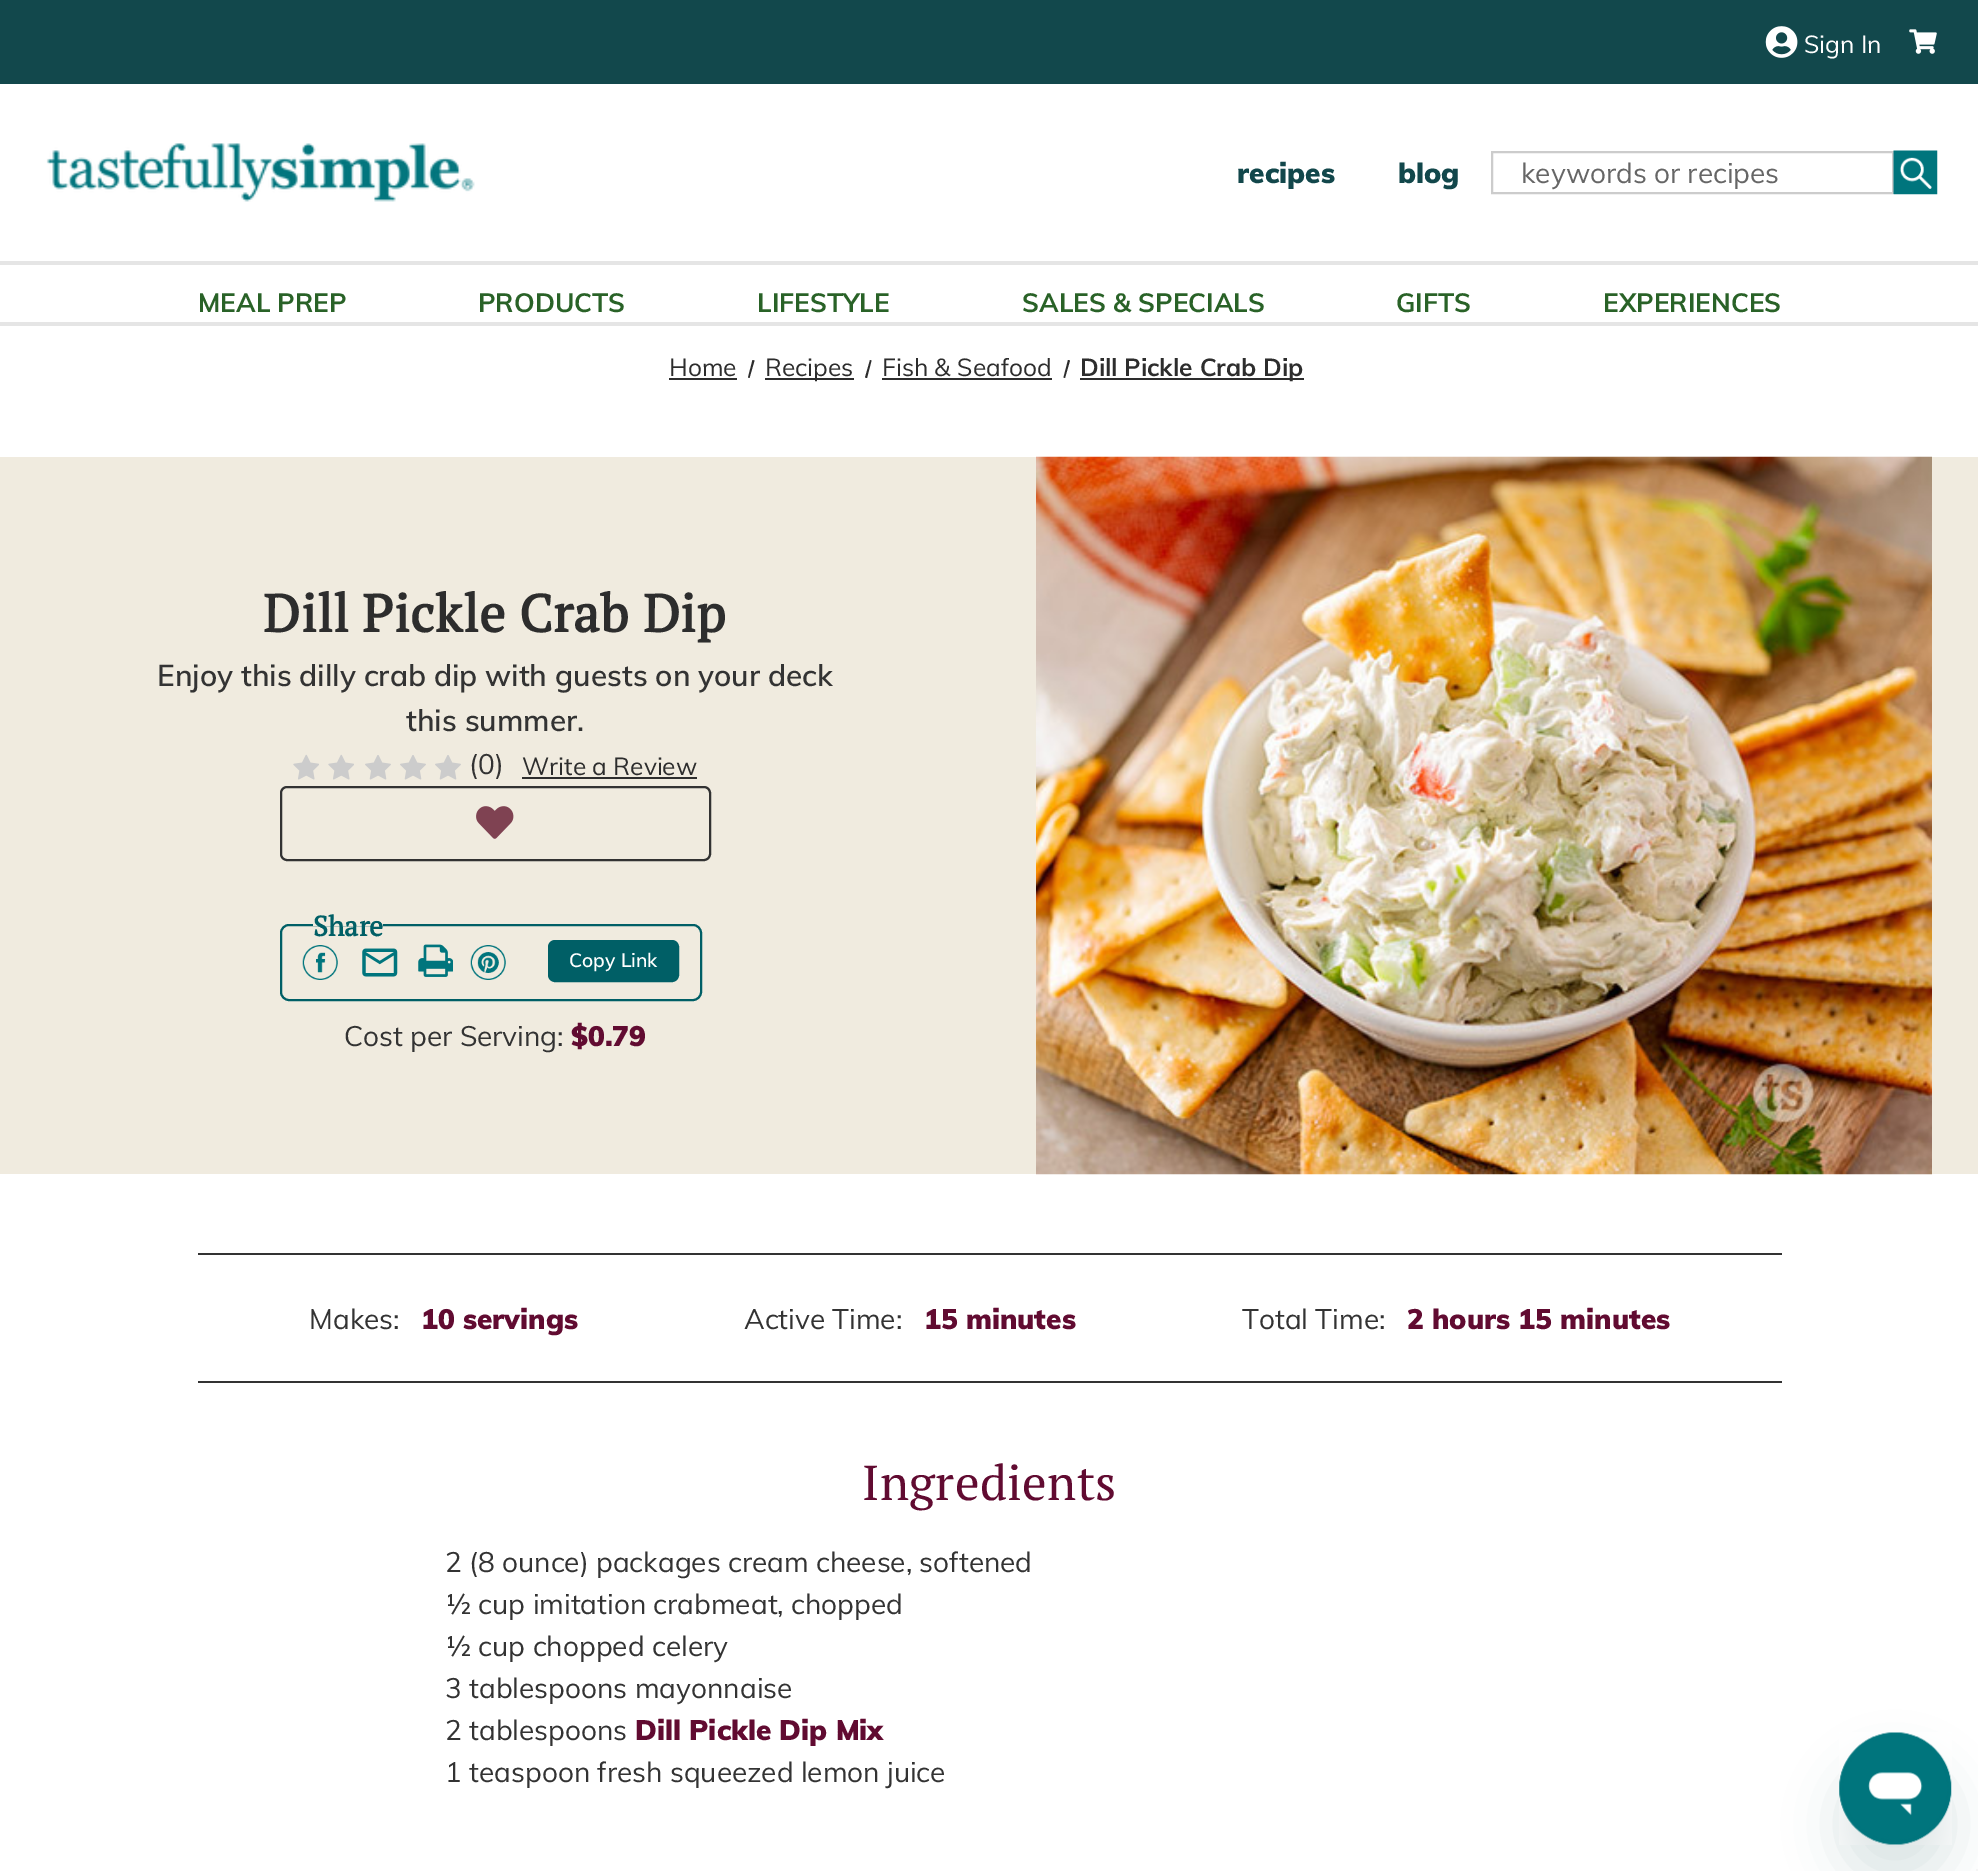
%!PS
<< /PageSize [1978 1871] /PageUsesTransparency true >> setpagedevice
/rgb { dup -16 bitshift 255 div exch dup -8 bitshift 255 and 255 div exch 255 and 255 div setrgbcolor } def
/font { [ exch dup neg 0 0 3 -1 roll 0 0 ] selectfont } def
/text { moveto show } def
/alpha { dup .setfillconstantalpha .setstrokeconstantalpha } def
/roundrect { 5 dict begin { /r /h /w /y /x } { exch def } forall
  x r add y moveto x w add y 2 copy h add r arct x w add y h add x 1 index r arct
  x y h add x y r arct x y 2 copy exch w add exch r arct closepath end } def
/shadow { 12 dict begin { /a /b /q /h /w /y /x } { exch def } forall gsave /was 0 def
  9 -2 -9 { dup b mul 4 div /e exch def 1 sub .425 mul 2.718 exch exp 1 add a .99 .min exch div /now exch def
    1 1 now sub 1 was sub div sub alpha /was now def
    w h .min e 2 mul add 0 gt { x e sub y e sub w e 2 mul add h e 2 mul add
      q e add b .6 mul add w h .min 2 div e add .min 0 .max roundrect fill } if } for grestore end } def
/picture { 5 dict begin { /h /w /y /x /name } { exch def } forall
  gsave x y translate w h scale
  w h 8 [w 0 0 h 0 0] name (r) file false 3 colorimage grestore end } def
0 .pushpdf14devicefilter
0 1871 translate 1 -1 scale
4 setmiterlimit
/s1 { /Muli-Regular 24.5 font 16#FFFFFF rgb } def
/s2 { /Muli-Black 28 font 16#12474B rgb } def
/s3 { /Muli-Regular 28 font 16#666666 rgb } def
/s4 { /Muli-Bold 26.25 font 16#296227 rgb } def
/s5 { /Muli-Regular 24.5 font 16#2D2D2D rgb } def
/s6 { /Muli-Bold 24.5 font 16#2D2D2D rgb } def
/s7 { /Muli-SemiBold 29.75 font 16#333333 rgb } def
/s8 { /Muli-Regular 28 font 16#333333 rgb } def
/s9 { /PTSerif-Bold 28 font 16#005F66 rgb } def
/s10 { /Muli-SemiBold 19.25 font 16#FFFFFF rgb } def
/s11 { /Muli-Black 28 font 16#610B31 rgb } def
16#FFFFFF rgb
0 0 1978 1871 rectfill
16#12484C rgb
0 0 1978 84 rectfill
(pic1.raw) 1765 26 33 32 picture
s1
(Sign In) 1804 53 text
(pic2.raw) 1909 29 28 25 picture
(pic3.raw) 46 143 429 59 picture
s2
(recipes) 1237 183 text
(blog) 1398 183 text
16#CCCCCC rgb
2 setlinewidth
1492 152 401 41 rectstroke
s3
(keywords or recipes) 1521 183 text
(pic4.raw) 1893 150 45 45 picture
16#E5E5E5 rgb
0 261 1978 4 rectfill
0 322 1978 4 rectfill
s4
(MEAL PREP) 198 312 text
(PRODUCTS) 478 312 text
(LIFESTYLE) 757 312 text
(SALES & SPECIALS) 1022 312 text
(GIFTS) 1396 312 text
(EXPERIENCES) 1603 312 text
s5
(Home) 669 376 text
669 378 68 2 rectfill
752.5 360 moveto 754.5 360.5 lineto 749.5 378 lineto 748 377.5 lineto closepath fill
765 378 89 2 rectfill
(Recipes) 765 376 text
870 360 moveto 871.5 360.5 lineto 867 378 lineto 865 377.5 lineto closepath fill
(Fish & Seafood) 882 376 text
882 378 170 2 rectfill
1068 360 moveto 1070 360.5 lineto 1065 378 lineto 1063.5 377.5 lineto closepath fill
1080 378 224 2 rectfill
s6
(Dill Pickle Crab Dip) 1080 376 text
16#F0EBDF rgb
0 457 1978 717 rectfill
/PTSerif-Bold 52.5 font
16#2D2D2D rgb
263 632 moveto 0.4 0 (Dill Pickle Crab Dip) ashow
s7
(Enjoy this dilly crab dip with guests on your deck) 157 686 text
(this summer.) 406 731 text
(pic5.raw) 293 754 26 26 picture
(pic5.raw) 328 754 26 26 picture
(pic6.raw) 365 755 26 25 picture
(pic6.raw) 400 755 26 25 picture
(pic6.raw) 435 755 26 25 picture
s8
(\(0\)) 469 774 text
s5
(Write a Review) 522 775 text
522 777 175 2 rectfill
16#323232 rgb
281 787 429 73 6 roundrect stroke
(pic7.raw) 476 806 38 33 picture
16#005F66 rgb
281 925 420 75 8 roundrect stroke
16#F0EBDF rgb
313 924 70 2 rectfill
s9
(Share) 313 936 text
(pic8.raw) 302 945 36 35 picture
(pic9.raw) 362 948 36 29 picture
(pic10.raw) 418 944 35 33 picture
(pic11.raw) 470 945 36 35 picture
549 941 129 40 6 roundrect gsave fill grestore
stroke
s10
(Copy Link) 569 967 text
s8
(Cost per Serving:) 344 1046 text
s11
($0.79) 571 1046 text
(pic12.raw) 1036 456 896 719 picture
16#333333 rgb
198 1253 1584 2 rectfill
198 1381 1584 2 rectfill
s8
(Makes:) 309 1329 text
s11
(10 servings) 421 1329 text
s8
(Active Time:) 744 1329 text
s11
(15 minutes) 924 1329 text
s8
(Total Time:) 1242 1329 text
s11
(2 hours 15 minutes) 1407 1329 text
/PTSerif-Regular 49 font
862 1500 moveto 0.4 0 (Ingredients) ashow
s8
(2 \(8 ounce\) packages cream cheese, softened) 445 1572 text
(½ cup imitation crabmeat, chopped) 445 1614 text
(½ cup chopped celery) 445 1656 text
(3 tablespoons mayonnaise) 445 1698 text
(2 tablespoons) 445 1740 text
s11
(Dill Pickle Dip Mix) 635 1740 text
s8
(1 teaspoon fresh squeezed lemon juice) 445 1782 text
16#17494D rgb
1839 1768 112 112 56 26 0.15 shadow
(pic13.raw) 1839 1732 113 113 picture
16#F5F5F5 rgb
1976 1869 2 2 rectfill
.poppdf14devicefilter showpage
